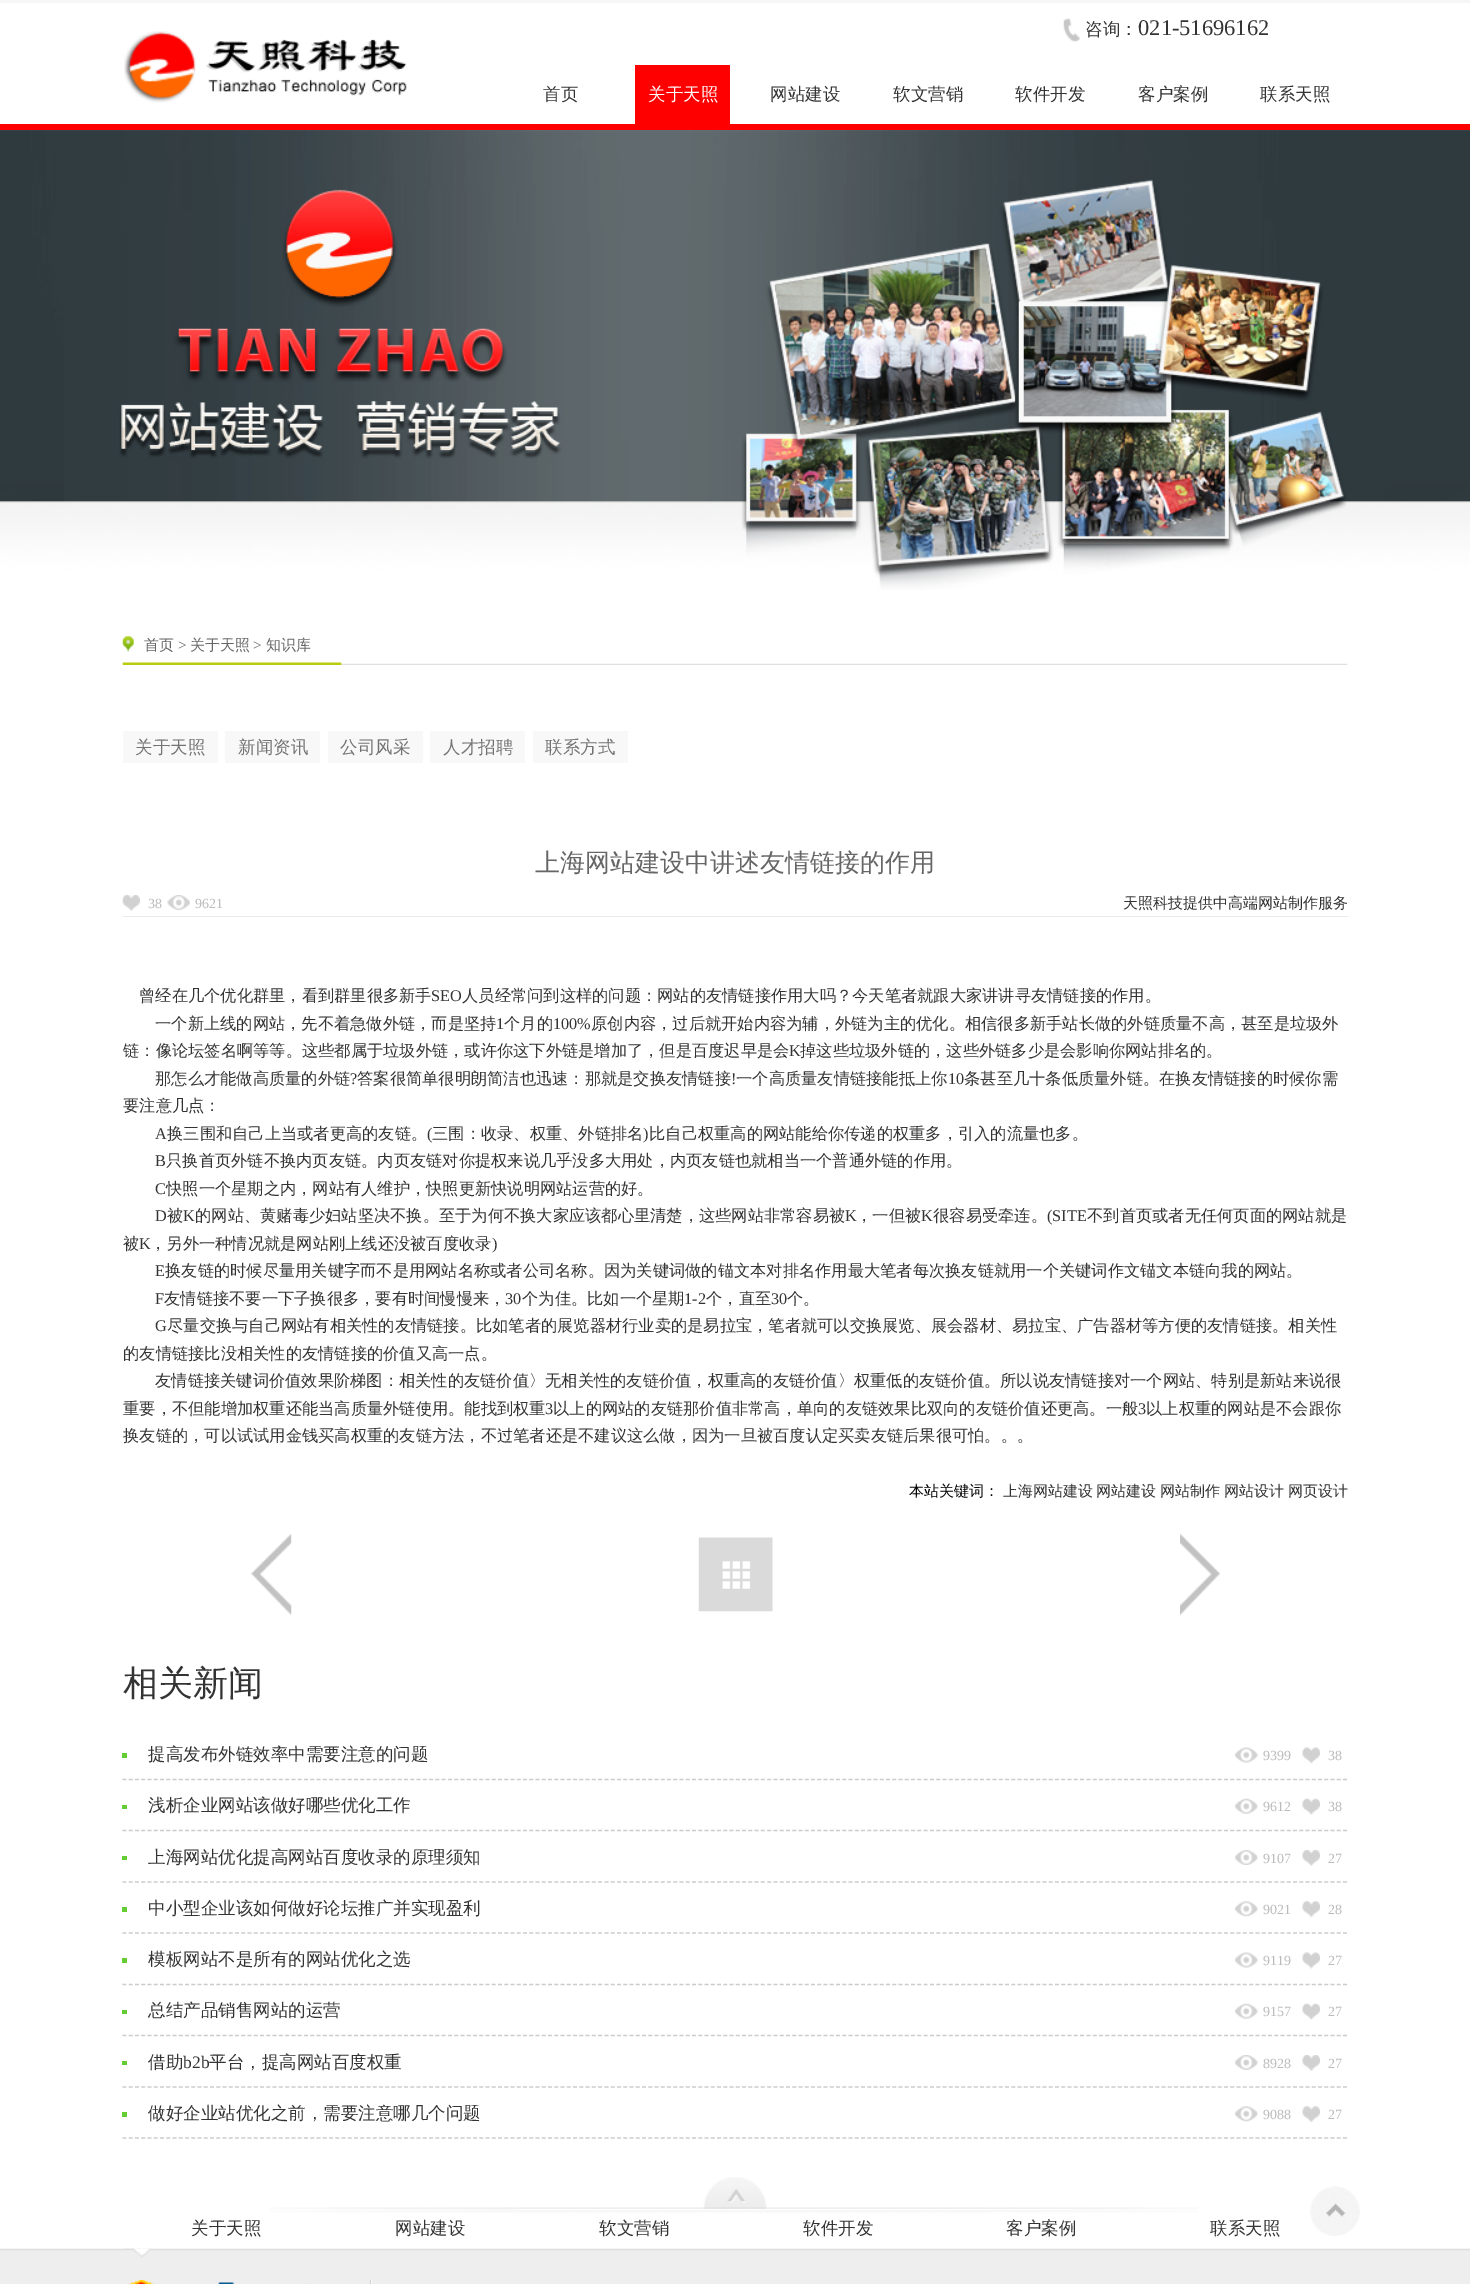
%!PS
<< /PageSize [1470 2284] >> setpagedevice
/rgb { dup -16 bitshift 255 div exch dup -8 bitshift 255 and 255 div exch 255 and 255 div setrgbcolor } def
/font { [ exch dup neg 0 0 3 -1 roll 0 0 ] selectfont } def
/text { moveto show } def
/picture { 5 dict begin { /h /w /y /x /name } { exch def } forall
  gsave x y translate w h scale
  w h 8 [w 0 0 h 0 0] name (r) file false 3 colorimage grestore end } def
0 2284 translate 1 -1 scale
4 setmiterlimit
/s1 { /WenQuanYiZenHei-Medium 17.5 font 16#333333 rgb } def
/s2 { /LiberationSerif-Regular 22.5 font 16#333333 rgb } def
/s3 { /WenQuanYiZenHei-Medium 17.5 font 16#FFFFFF rgb } def
/s4 { /WenQuanYiZenHei-Medium 15 font 16#666666 rgb } def
/s5 { /LiberationSerif-Regular 15 font 16#666666 rgb } def
/s6 { /WenQuanYiZenHei-Medium 17.5 font 16#747373 rgb } def
/s7 { /WenQuanYiZenHei-Medium 25 font 16#666666 rgb } def
/s8 { /LiberationSerif-Regular 14 font 16#BBBBBB rgb } def
/s9 { /WenQuanYiZenHei-Medium 15 font 16#333333 rgb } def
/s10 { /WenQuanYiZenHei-Medium 16.25 font 16#333333 rgb } def
/s11 { /LiberationSerif-Regular 16.25 font 16#333333 rgb } def
/s12 { /WenQuanYiZenHei-Medium 15 font 16#000000 rgb } def
/s13 { /WenQuanYiZenHei-Medium 35 font 16#333333 rgb } def
/s14 { /LiberationSerif-Regular 17.5 font 16#333333 rgb } def
16#FFFFFF rgb
0 0 1470 2284 rectfill
16#F7F6F6 rgb
0 0 1470 3 rectfill
16#FF0000 rgb
0 124 1470 6 rectfill
(pic1.raw) 124 31 283 72 picture
(pic2.raw) 1063 18 17 24 picture
s1
(咨询：) 1085 35 text
s2
(021-51696162) 1138 35 text
s1
(首页) 543 100 text
16#FF0000 rgb
635 65 95 59 rectfill
s3
(关于天照) 648 100 text
s1
(网站建设) 770 100 text
(软文营销) 893 100 text
(软件开发) 1015 100 text
(客户案例) 1138 100 text
(联系天照) 1260 100 text
(pic3.raw) 0 130 1470 460 picture
(pic4.raw) 122 636 1226 29 picture
s4
(首页) 144 650 text
s5
(>) 178 650 text
s4
(关于天照) 190 650 text
s5
(>) 253 650 text
s4
(知识库) 266 650 text
16#F8F8F8 rgb
123 731 95 32 rectfill
s6
(关于天照) 135 753 text
16#F8F8F8 rgb
225 731 95 32 rectfill
s6
(新闻资讯) 238 753 text
16#F8F8F8 rgb
328 731 95 32 rectfill
s6
(公司风采) 340 753 text
16#F8F8F8 rgb
430 731 95 32 rectfill
s6
(人才招聘) 443 753 text
16#F8F8F8 rgb
533 731 95 32 rectfill
s6
(联系方式) 545 753 text
s7
(上海网站建设中讲述友情链接的作用) 535 871 text
16#EAEAEA rgb
123 916 1225 1 rectfill
(pic5.raw) 122 895 18 16 picture
s8
(38) 148 908 text
(pic6.raw) 167 895 23 15 picture
(9621) 195 908 text
s9
(天照科技提供中高端网站制作服务) 1123 908 text
s10
(曾经在几个优化群里，看到群里很多新手) 139 1001 text
s11
(SEO) 431 1001 text
s10
(人员经常问到这样的问题：网站的友情链接作用大吗？今天笔者就跟大家讲讲寻友情链接的作用。) 462 1001 text
(一个新上线的网站，先不着急做外链，而是坚持) 155 1029 text
s11
(1) 496 1029 text
s10
(个月的) 504 1029 text
s11
(100%) 553 1029 text
s10
(原创内容，过后就开始内容为辅，外链为主的优化。相信很多新手站长做的外链质量不高，甚至是垃圾外) 591 1029 text
(链：像论坛签名啊等等。这些都属于垃圾外链，或许你这下外链是增加了，但是百度迟早是会) 123 1056 text
s11
(K) 789 1056 text
s10
(掉这些垃圾外链的，这些外链多少是会影响你网站排名的。) 800 1056 text
(那怎么才能做高质量的外链) 155 1084 text
s11
(?) 350 1084 text
s10
(答案很简单很明朗简洁也迅速：那就是交换友情链接) 357 1084 text
s11
(!) 731 1084 text
s10
(一个高质量友情链接能抵上你) 736 1084 text
s11
(10) 948 1084 text
s10
(条甚至几十条低质量外链。在换友情链接的时候你需) 964 1084 text
(要注意几点：) 123 1111 text
s11
(A) 155 1139 text
s10
(换三围和自己上当或者更高的友链。) 167 1139 text
s11
(\() 427 1139 text
s10
(三围：收录、权重、外链排名) 432 1139 text
s11
(\)) 643 1139 text
s10
(比自己权重高的网站能给你传递的权重多，引入的流量也多。) 649 1139 text
s11
(B) 155 1166 text
s10
(只换首页外链不换内页友链。内页友链对你提权来说几乎没多大用处，内页友链也就相当一个普通外链的作用。) 166 1166 text
s11
(C) 155 1194 text
s10
(快照一个星期之内，网站有人维护，快照更新快说明网站运营的好。) 166 1194 text
s11
(D) 155 1221 text
s10
(被) 167 1221 text
s11
(K) 183 1221 text
s10
(的网站、黄赌毒少妇站坚决不换。至于为何不换大家应该都心里清楚，这些网站非常容易被) 195 1221 text
s11
(K) 845 1221 text
s10
(，一但被) 856 1221 text
s11
(K) 921 1221 text
s10
(很容易受牵连。) 933 1221 text
s11
(\(SITE) 1047 1221 text
s10
(不到首页或者无任何页面的网站就是) 1087 1221 text
(被) 123 1249 text
s11
(K) 139 1249 text
s10
(，另外一种情况就是网站刚上线还没被百度收录) 150 1249 text
s11
(\)) 492 1249 text
(E) 155 1276 text
s10
(换友链的时候尽量用关键字而不是用网站名称或者公司名称。因为关键词做的锚文本对排名作用最大笔者每次换友链就用一个关键词作文锚文本链向我的网站。) 165 1276 text
s11
(F) 155 1304 text
s10
(友情链接不要一下子换很多，要有时间慢慢来，) 164 1304 text
s11
(30) 505 1304 text
s10
(个为佳。比如一个星期) 522 1304 text
s11
(1-2) 684 1304 text
s10
(个，直至) 706 1304 text
s11
(30) 771 1304 text
s10
(个。) 787 1304 text
s11
(G) 155 1331 text
s10
(尽量交换与自己网站有相关性的友情链接。比如笔者的展览器材行业卖的是易拉宝，笔者就可以交换展览、展会器材、易拉宝、广告器材等方便的友情链接。相关性) 167 1331 text
(的友情链接比没相关性的友情链接的价值又高一点。) 123 1359 text
(友情链接关键词价值效果阶梯图：相关性的友链价值〉无相关性的友链价值，权重高的友链价值〉权重低的友链价值。所以说友情链接对一个网站、特别是新站来说很) 155 1386 text
(重要，不但能增加权重还能当高质量外链使用。能找到权重) 123 1414 text
s11
(3) 545 1414 text
s10
(以上的网站的友链那价值非常高，单向的友链效果比双向的友链价值还更高。一般) 553 1414 text
s11
(3) 1138 1414 text
s10
(以上权重的网站是不会跟你) 1146 1414 text
(换友链的，可以试试用金钱买高权重的友链方法，不过笔者还是不建议这么做，因为一旦被百度认定买卖友链后果很可怕。。。) 123 1441 text
s12
(本站关键词：) 909 1496 text
s9
(上海网站建设) 1003 1496 text
(网站建设) 1096 1496 text
(网站制作) 1160 1496 text
(网站设计) 1224 1496 text
(网页设计) 1288 1496 text
(pic7.raw) 251 1533 41 82 picture
(pic8.raw) 698 1537 75 75 picture
(pic9.raw) 1180 1533 40 82 picture
s13
(相关新闻) 123 1695 text
16#66CC33 rgb
122 1753 5 5 rectfill
16#CCCCCC rgb
1.2 setlinewidth
[3.75 2.51] 0 setdash
122.5 1779.5 moveto 1347.5 1779.5 lineto stroke
s1
(提高发布外链效率中需要注意的问题) 148 1760 text
(pic10.raw) 1235 1747 23 16 picture
s8
(9399) 1263 1760 text
(pic11.raw) 1302 1747 18 17 picture
(38) 1328 1760 text
16#66CC33 rgb
122 1805 5 4 rectfill
16#CCCCCC rgb
122.5 1830.5 moveto 1347.5 1830.5 lineto stroke
s1
(浅析企业网站该做好哪些优化工作) 148 1811 text
(pic12.raw) 1235 1798 23 16 picture
s8
(9612) 1263 1811 text
(pic13.raw) 1302 1798 18 17 picture
(38) 1328 1811 text
16#66CC33 rgb
122 1856 5 4 rectfill
16#CCCCCC rgb
122.5 1882 moveto 1347.5 1882 lineto stroke
s1
(上海网站优化提高网站百度收录的原理须知) 148 1863 text
(pic14.raw) 1235 1850 23 15 picture
s8
(9107) 1263 1863 text
(pic15.raw) 1302 1850 18 16 picture
(27) 1328 1863 text
16#66CC33 rgb
122 1907 5 5 rectfill
16#CCCCCC rgb
122.5 1933 moveto 1347.5 1933 lineto stroke
s1
(中小型企业该如何做好论坛推广并实现盈利) 148 1914 text
(pic16.raw) 1235 1901 23 16 picture
s8
(9021) 1263 1914 text
(pic17.raw) 1302 1901 18 17 picture
(28) 1328 1914 text
16#66CC33 rgb
122 1958 5 5 rectfill
16#CCCCCC rgb
122.5 1984.5 moveto 1347.5 1984.5 lineto stroke
s1
(模板网站不是所有的网站优化之选) 148 1965 text
(pic10.raw) 1235 1952 23 16 picture
s8
(9119) 1263 1965 text
(pic11.raw) 1302 1952 18 17 picture
(27) 1328 1965 text
16#66CC33 rgb
122 2010 5 4 rectfill
16#CCCCCC rgb
122.5 2035.5 moveto 1347.5 2035.5 lineto stroke
s1
(总结产品销售网站的运营) 148 2016 text
(pic12.raw) 1235 2003 23 16 picture
s8
(9157) 1263 2016 text
(pic13.raw) 1302 2003 18 17 picture
(27) 1328 2016 text
16#66CC33 rgb
122 2061 5 4 rectfill
16#CCCCCC rgb
122.5 2087 moveto 1347.5 2087 lineto stroke
s1
(借助) 148 2068 text
s14
(b2b) 183 2068 text
s1
(平台，提高网站百度权重) 209 2068 text
(pic18.raw) 1235 2055 23 15 picture
s8
(8928) 1263 2068 text
(pic19.raw) 1302 2055 18 16 picture
(27) 1328 2068 text
16#66CC33 rgb
122 2112 5 5 rectfill
16#CCCCCC rgb
122.5 2138 moveto 1347.5 2138 lineto stroke
s1
(做好企业站优化之前，需要注意哪几个问题) 148 2119 text
(pic16.raw) 1235 2106 23 16 picture
s8
(9088) 1263 2119 text
(pic17.raw) 1302 2106 18 17 picture
(27) 1328 2119 text
(pic20.raw) 269 2177 929 36 picture
s1
(关于天照) 191 2234 text
(网站建设) 395 2234 text
(软文营销) 599 2234 text
(软件开发) 803 2234 text
(客户案例) 1006 2234 text
(联系天照) 1210 2234 text
(pic21.raw) 0 2248 1470 36 picture
(pic22.raw) 123 2248 28 10 picture
(pic23.raw) 1310 2186 50 50 picture
16#CCCCCC rgb
370 2280 1 4 rectfill
(pic24.raw) 128 2280 26 4 picture
(pic25.raw) 218 2282 16 2 picture
16#E7E5DD rgb
304 2283 1 1 rectfill
16#FFFFFF rgb
371 2280 1 4 rectfill
showpage
